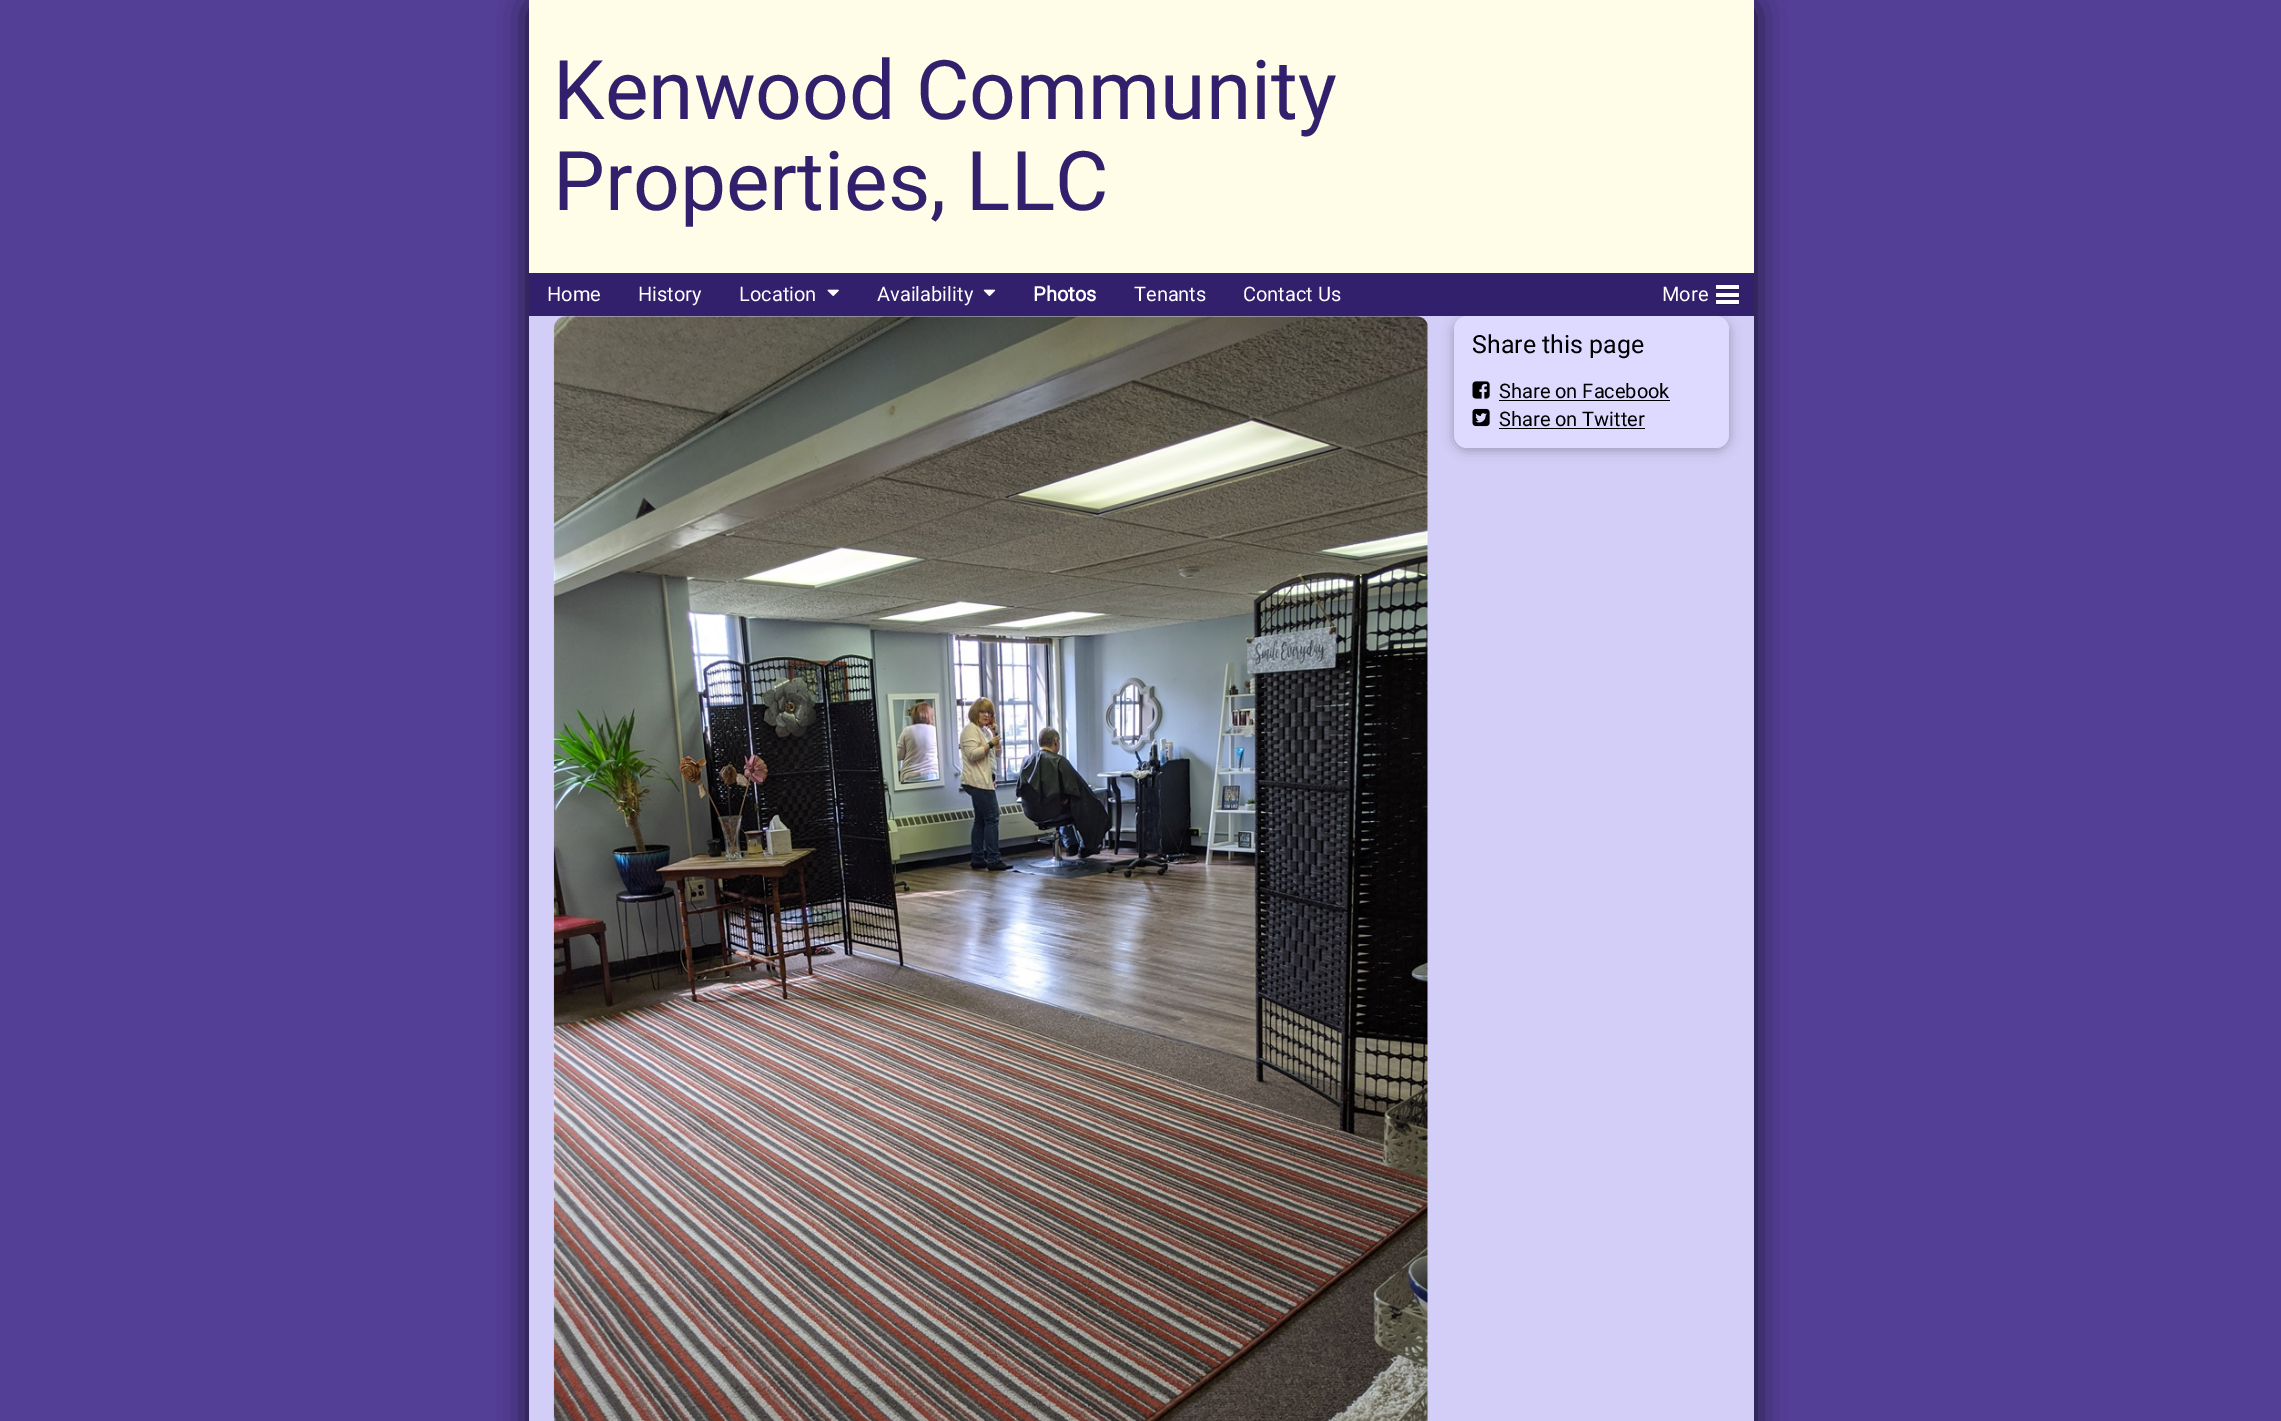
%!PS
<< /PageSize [2281 1421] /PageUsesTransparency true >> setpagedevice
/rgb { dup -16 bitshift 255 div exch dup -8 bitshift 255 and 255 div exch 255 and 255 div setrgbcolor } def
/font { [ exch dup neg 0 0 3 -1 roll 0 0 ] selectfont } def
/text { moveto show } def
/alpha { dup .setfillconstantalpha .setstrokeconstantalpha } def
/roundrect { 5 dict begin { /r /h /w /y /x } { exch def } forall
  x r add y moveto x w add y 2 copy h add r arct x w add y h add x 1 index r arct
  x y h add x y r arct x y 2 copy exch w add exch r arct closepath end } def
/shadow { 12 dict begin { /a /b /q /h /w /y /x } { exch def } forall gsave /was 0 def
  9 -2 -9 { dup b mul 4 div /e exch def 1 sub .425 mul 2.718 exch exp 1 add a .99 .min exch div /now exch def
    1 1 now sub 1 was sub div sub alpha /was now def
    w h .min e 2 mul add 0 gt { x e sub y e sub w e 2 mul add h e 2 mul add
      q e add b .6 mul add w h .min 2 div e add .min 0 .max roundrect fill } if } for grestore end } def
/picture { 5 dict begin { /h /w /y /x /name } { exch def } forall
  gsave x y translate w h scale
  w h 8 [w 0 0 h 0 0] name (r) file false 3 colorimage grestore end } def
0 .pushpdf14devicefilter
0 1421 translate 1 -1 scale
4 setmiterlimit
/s1 { /Roboto-Regular 82.25 font 16#32206D rgb } def
/s2 { /Roboto-Regular 20 font 16#FFFFFF rgb } def
/s3 { /Roboto-Bold 20 font 16#FFFFFF rgb } def
/s4 { /Roboto-Regular 25 font 16#000000 rgb } def
/s5 { /Roboto-Regular 20 font 16#000000 rgb } def
16#543F96 rgb
0 0 2281 1421 rectfill
16#000000 rgb
529 0 1225 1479 13 15 0.8 shadow
16#D3CEF7 rgb
529 316 1225 1105 rectfill
16#FFFDE8 rgb
529 0 1225 273 rectfill
s1
(Kenwood Community) 553 119 text
(Properties, LLC) 553 210 text
16#000000 rgb
1454 319 275 131 13 6 0.29 shadow
16#32206D rgb
529 273 1225 43 rectfill
s2
(Home) 547 301 text
(History) 638 301 text
(Location) 739 301 text
(pic1.raw) 827 289 12 7 picture
(Availability) 877 301 text
(pic2.raw) 983 289 13 7 picture
s3
(Photos) 1033 301 text
s2
(Tenants) 1134 301 text
(Contact Us) 1243 301 text
(More) 1662 301 text
16#261852 rgb
1716 286.5 moveto 1716 288 lineto 1716 291 1717.5 290 1720.5 290 curveto 1734.5 290 lineto 1737.5 290 1739 291 1739 288 curveto 1739 286.5 lineto 1739 289.5 1737.5 289 1734 289 curveto 1721 289 lineto 1717.5 289 1716 289.5 1716 286.5 curveto closepath fill
16#FFFFFF rgb
1716 285 23 4 1 roundrect fill
16#261852 rgb
1716 294.5 moveto 1716 296 lineto 1716 299 1717.5 298 1720.5 298 curveto 1734.5 298 lineto 1737.5 298 1739 299 1739 296 curveto 1739 294.5 lineto 1739 297 1736.5 296 1734 296 curveto 1721 296 lineto 1718.5 296 1716 297 1716 294.5 curveto closepath fill
16#FFFFFF rgb
1716 293 23 4 1 roundrect fill
16#261852 rgb
1716 301.5 moveto 1716 303 lineto 1716 306 1717.5 305 1720.5 305 curveto 1734.5 305 lineto 1737.5 305 1739 306 1739 303 curveto 1739 301.5 lineto 1739 304.5 1737.5 304 1734 304 curveto 1721 304 lineto 1717.5 304 1716 304.5 1716 301.5 curveto closepath fill
16#FFFFFF rgb
1716 300 23 4 1 roundrect fill
(pic3.raw) 553 316 875 1105 picture
16#DDD9FF rgb
1454 316 275 132 13 roundrect fill
s4
(Share this page) 1472 353 text
(pic4.raw) 1472 381 18 18 picture
s5
(Share on Facebook) 1499 398 text
1499 400 171 1 rectfill
(pic5.raw) 1472 408 18 19 picture
(Share on Twitter) 1499 426 text
1499 428 146 1 rectfill
.poppdf14devicefilter showpage
